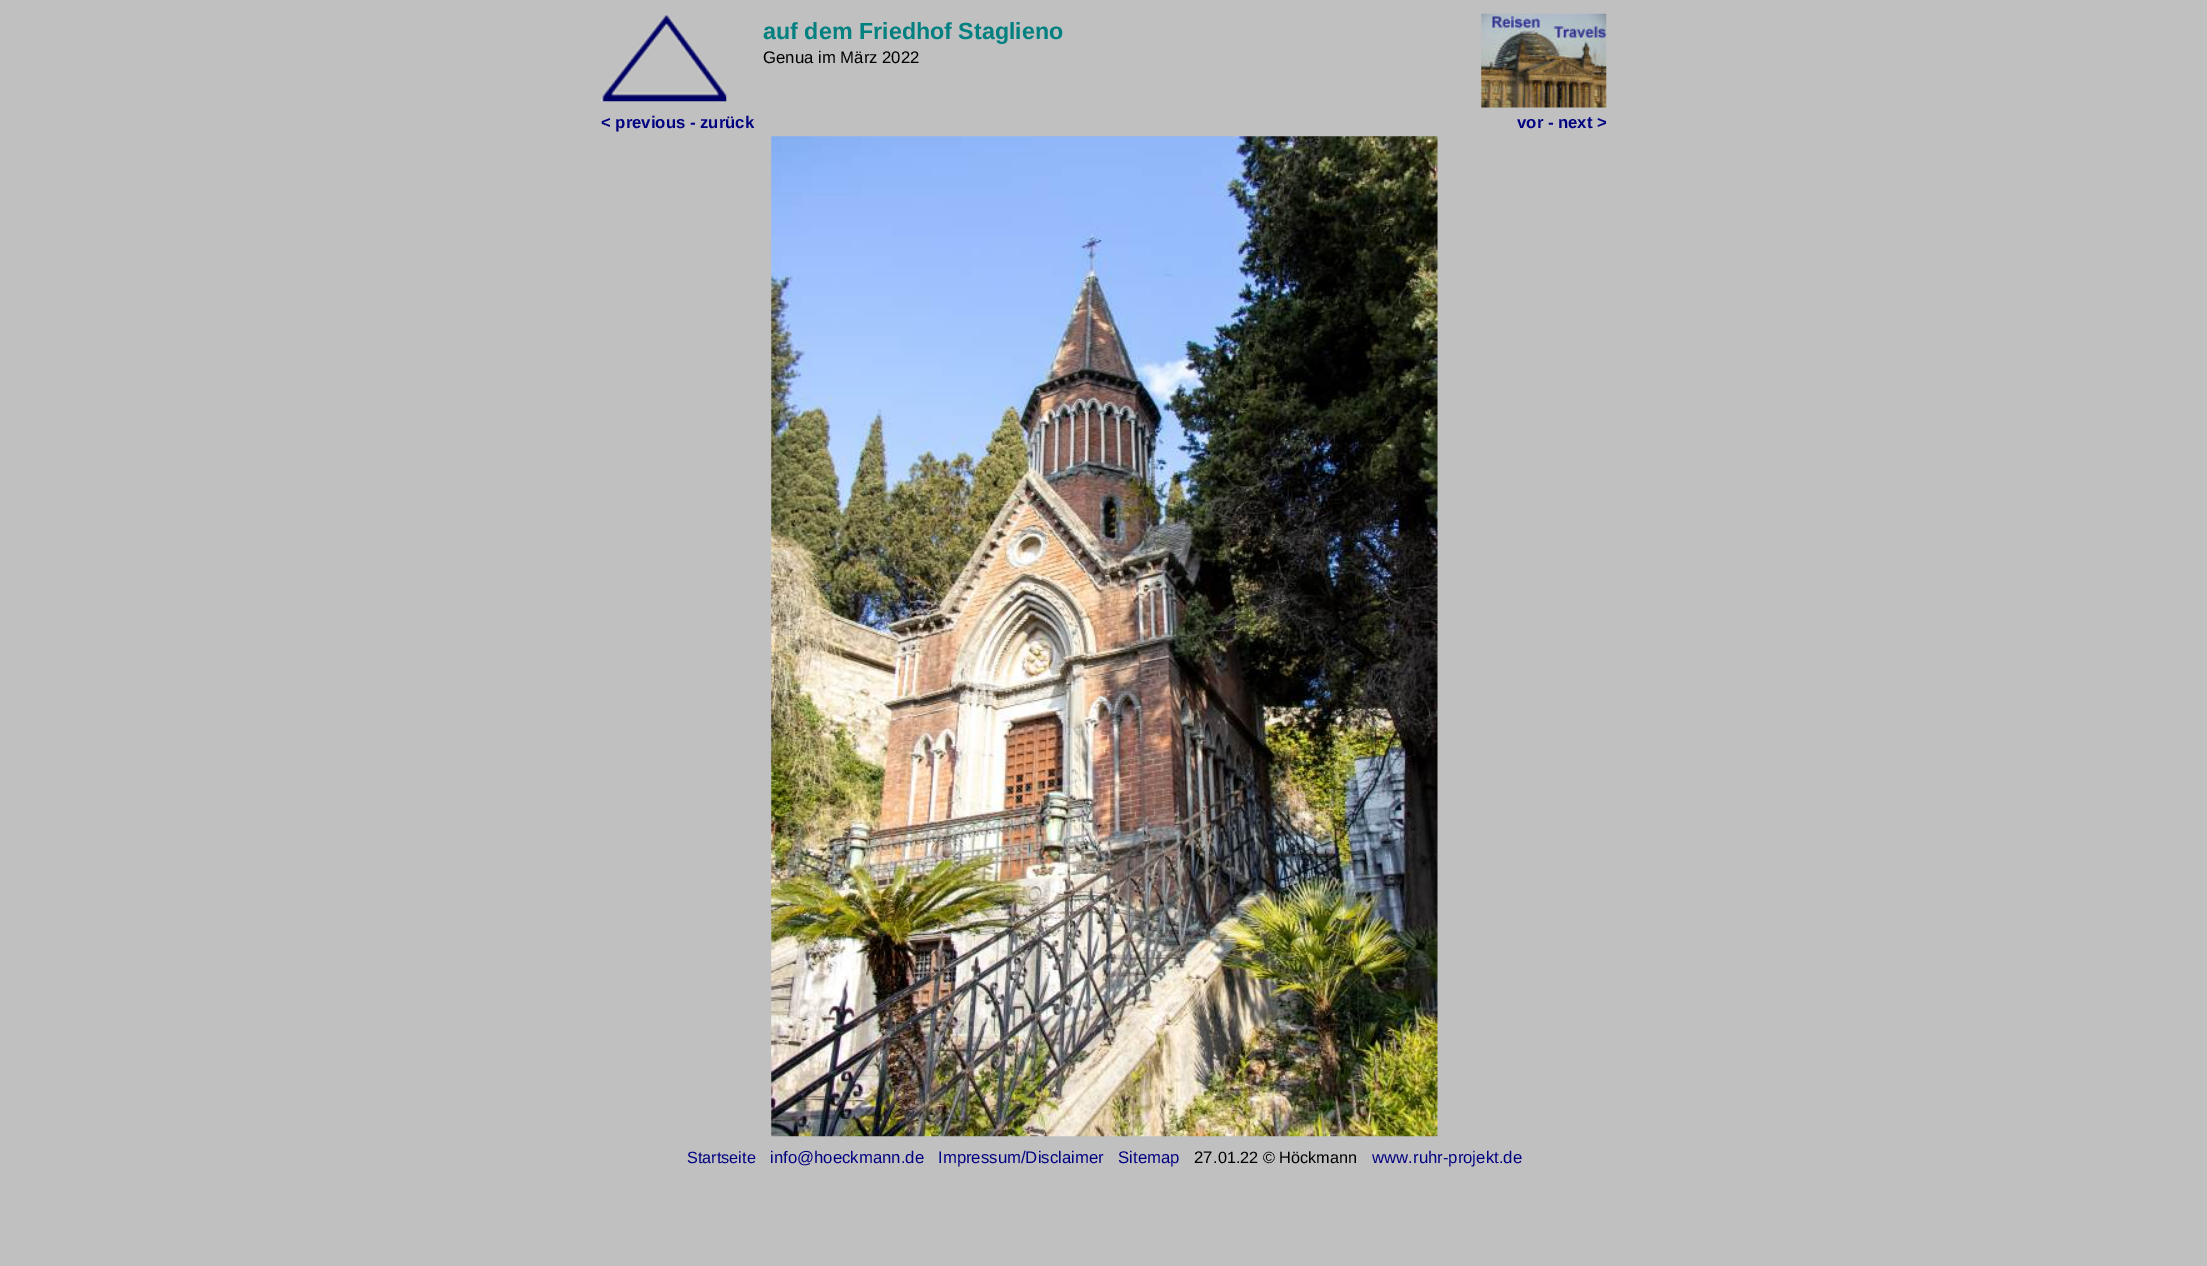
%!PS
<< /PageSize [2207 1266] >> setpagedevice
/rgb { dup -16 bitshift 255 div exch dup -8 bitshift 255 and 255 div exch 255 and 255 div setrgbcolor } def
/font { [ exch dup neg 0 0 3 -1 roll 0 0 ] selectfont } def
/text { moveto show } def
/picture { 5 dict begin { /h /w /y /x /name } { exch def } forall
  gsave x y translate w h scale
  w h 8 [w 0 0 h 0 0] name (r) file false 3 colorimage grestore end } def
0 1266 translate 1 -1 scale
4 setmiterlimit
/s1 { /LiberationSans-Bold 23.3 font 16#008080 rgb } def
/s2 { /LiberationSans-Regular 16.75 font 16#000000 rgb } def
/s3 { /LiberationSans-Bold 16.75 font 16#000080 rgb } def
/s4 { /LiberationSans-Regular 16.25 font 16#000080 rgb } def
/s5 { /LiberationSans-Regular 16.75 font 16#000080 rgb } def
/s6 { /LiberationSans-Regular 16.25 font 16#000000 rgb } def
16#C0C0C0 rgb
0 0 2207 1266 rectfill
(pic1.raw) 601 15 126 87 picture
s1
(auf dem Friedhof Staglieno) 763 39 text
s2
(Genua im März 2022) 763 63 text
(pic2.raw) 1481 13 126 95 picture
s3
(< previous - zurück) 601 128 text
(vor - next >) 1517 128 text
(pic3.raw) 771 136 667 1001 picture
s4
(Startseite) 687 1163 text
s5
(info@hoeckmann.de) 770 1163 text
(Impressum/Disclaimer) 938 1163 text
(Sitemap) 1118 1163 text
s2
(27) 1194 1163 text
s6
(.01.22 © Höckmann) 1213 1163 text
s5
(www.ruhr-projekt.de) 1372 1163 text
showpage
